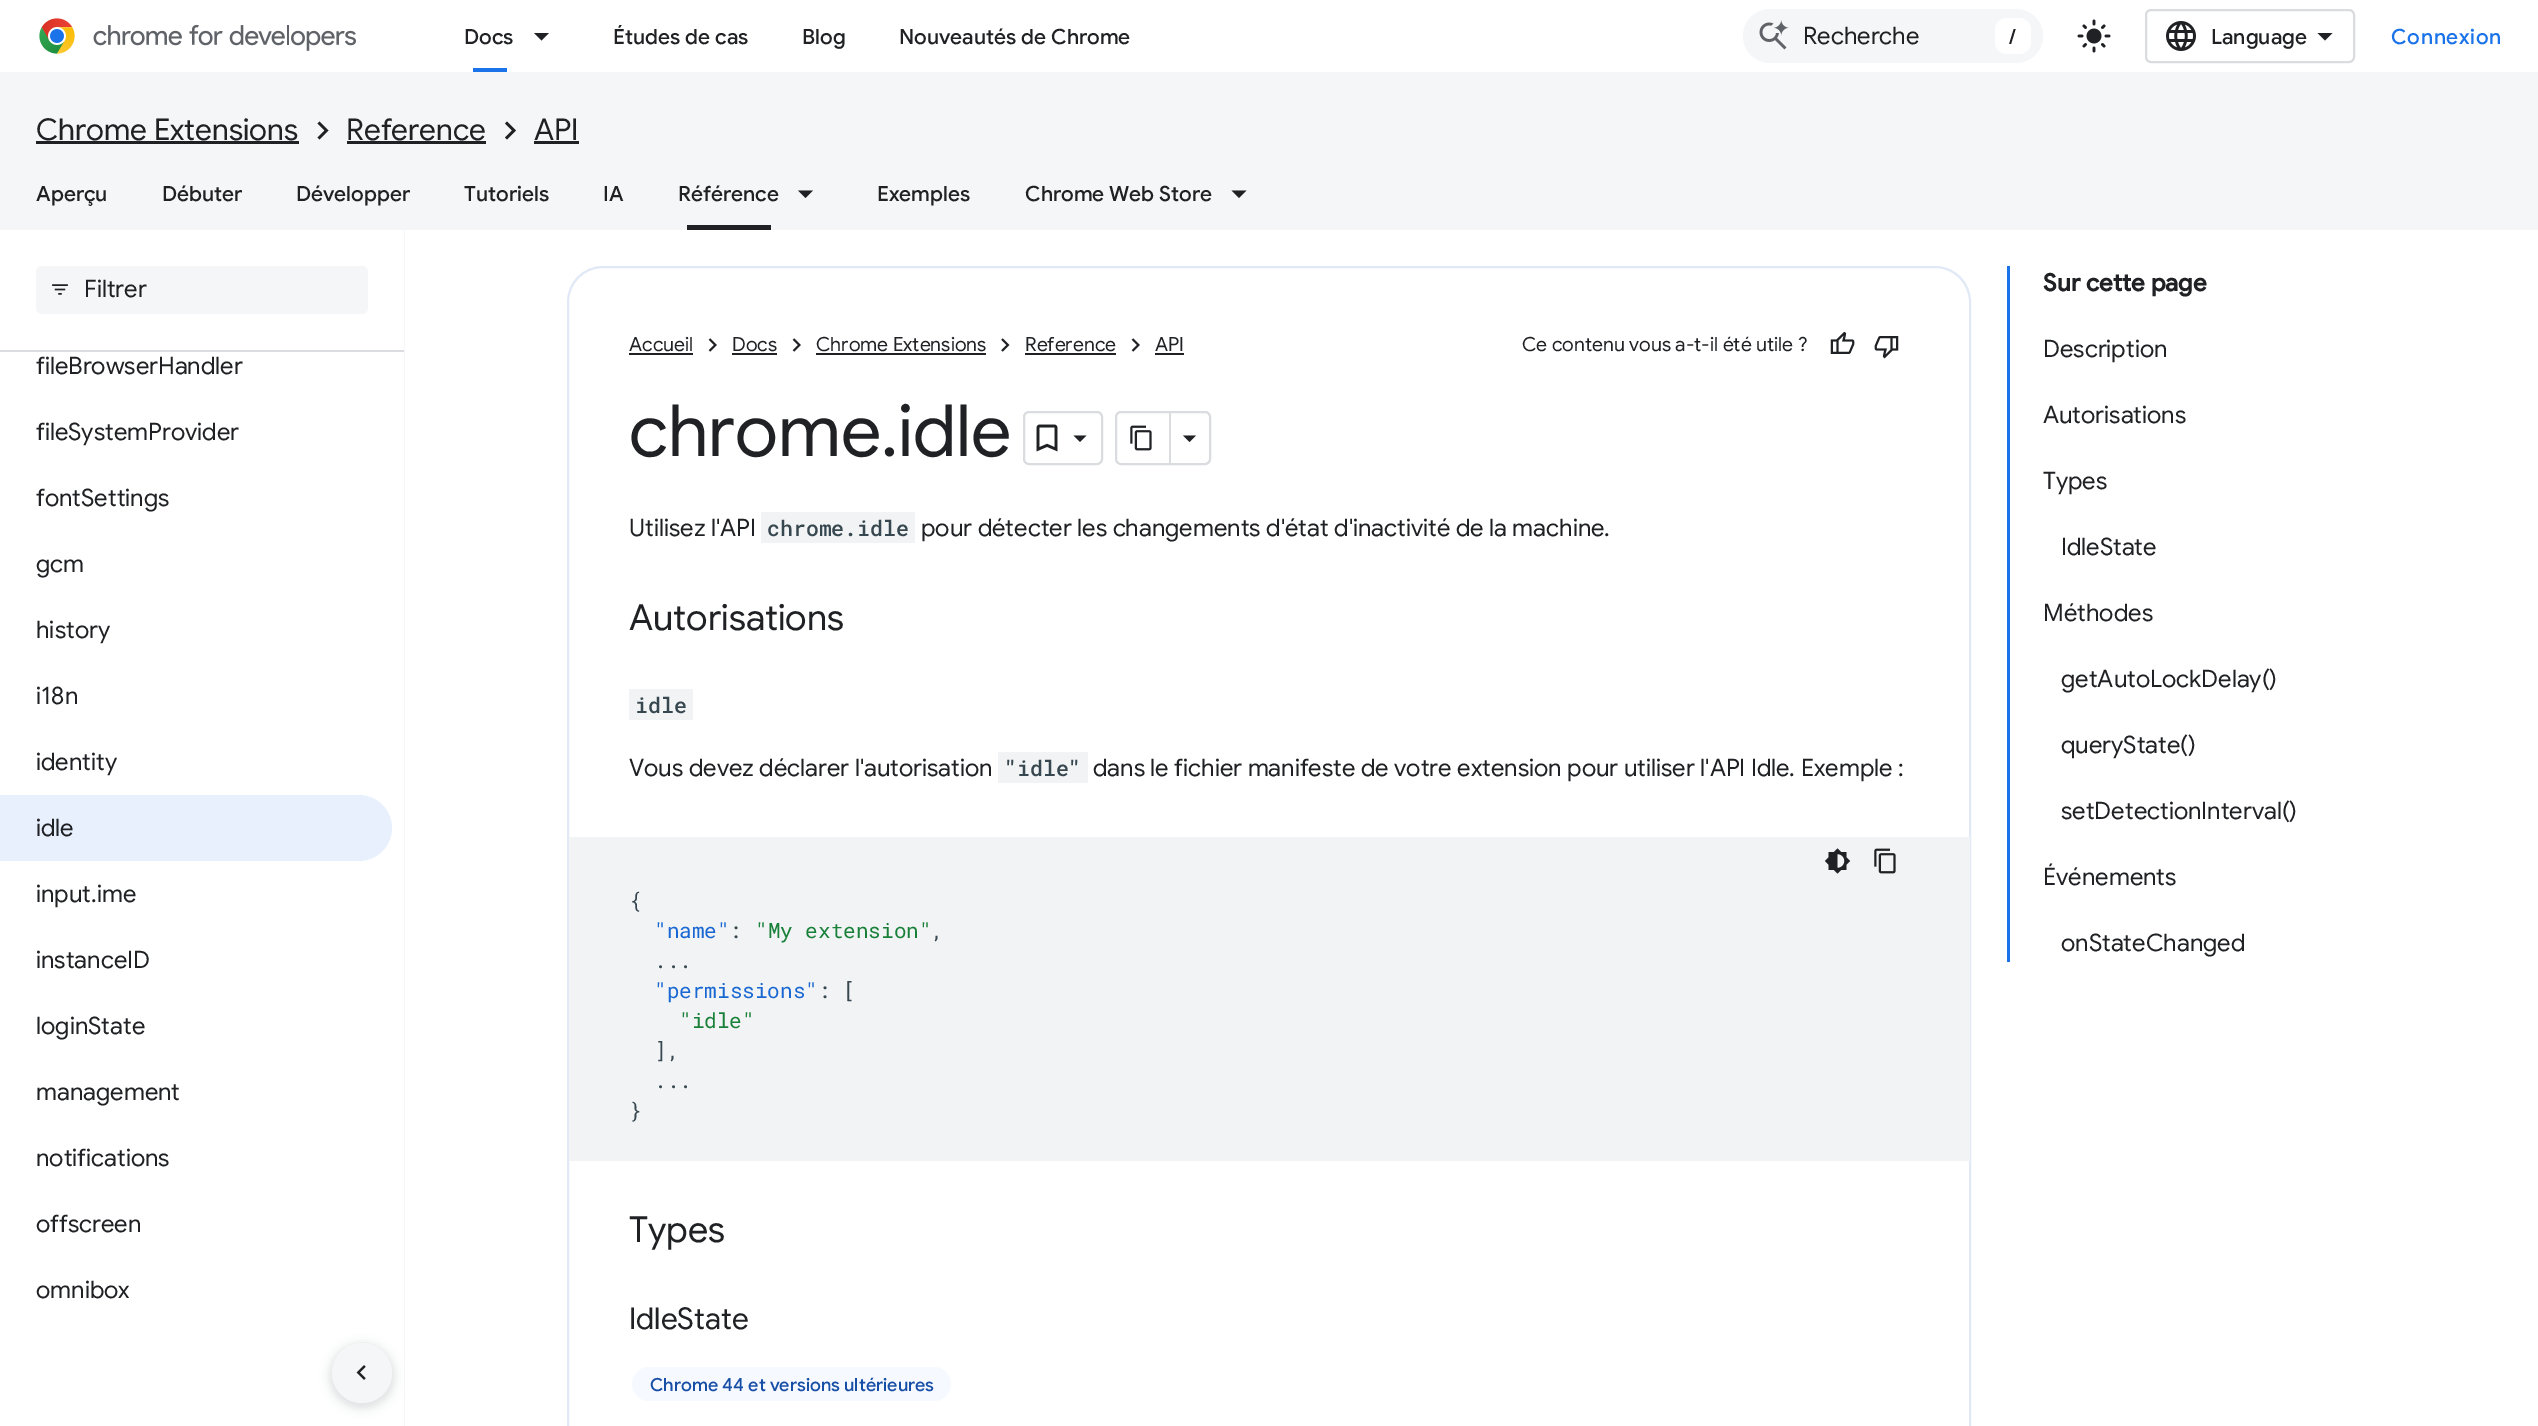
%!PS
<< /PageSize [2538 1426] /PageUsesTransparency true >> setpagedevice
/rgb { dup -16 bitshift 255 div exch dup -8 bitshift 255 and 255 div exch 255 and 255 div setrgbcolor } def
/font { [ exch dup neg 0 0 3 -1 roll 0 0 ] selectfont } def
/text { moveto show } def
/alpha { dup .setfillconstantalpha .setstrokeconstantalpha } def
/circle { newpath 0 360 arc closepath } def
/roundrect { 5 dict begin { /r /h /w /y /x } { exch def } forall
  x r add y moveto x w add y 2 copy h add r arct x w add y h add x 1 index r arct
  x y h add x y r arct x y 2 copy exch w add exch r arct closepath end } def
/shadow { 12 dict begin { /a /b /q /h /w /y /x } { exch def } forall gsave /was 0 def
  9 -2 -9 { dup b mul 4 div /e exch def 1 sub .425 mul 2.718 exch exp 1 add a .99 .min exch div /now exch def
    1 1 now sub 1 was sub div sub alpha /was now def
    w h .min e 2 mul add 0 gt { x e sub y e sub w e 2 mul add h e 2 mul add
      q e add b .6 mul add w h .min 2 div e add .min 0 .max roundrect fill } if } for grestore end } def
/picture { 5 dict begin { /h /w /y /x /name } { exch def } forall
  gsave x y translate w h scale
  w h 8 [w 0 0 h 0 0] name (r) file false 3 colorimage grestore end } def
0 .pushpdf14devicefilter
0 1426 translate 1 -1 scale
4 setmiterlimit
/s1 { /GoogleSans-Medium 21 font 16#202124 rgb } def
/s2 { /GoogleSans-Regular 24 font 16#202124 rgb } def
/s3 { /GoogleSans-Regular 30 font 16#202124 rgb } def
/s4 { /GoogleSans-Regular 19.5 font 16#202124 rgb } def
/s5 { /GoogleSans-Regular 72 font 16#202124 rgb } def
/s6 { /RobotoMono-Medium 21.5 font 16#37474F rgb } def
/s7 { /GoogleSans-Regular 36 font 16#202124 rgb } def
/s8 { /RobotoMono-Regular 21 font 16#37474F rgb } def
/s9 { /RobotoMono-Regular 21 font 16#1967D2 rgb } def
/s10 { /RobotoMono-Regular 21 font 16#188038 rgb } def
/s11 { /GoogleSans-Medium 18 font 16#174EA6 rgb } def
/s12 { /GoogleSans-Bold 24 font 16#202124 rgb } def
16#FFFFFF rgb
0 0 2538 1426 rectfill
16#F5F6F7 rgb
2 1426 moveto 2 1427 lineto 405 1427 lineto 405 0 lineto 404 0 lineto 404 1426 lineto closepath fill
16#FFFFFF rgb
404 0 1 72 rectfill
(pic1.raw) 39 18 317 36 picture
s1
(Docs) 464 44 text
16#1A73E8 rgb
473 68 34 4 rectfill
16#202124 rgb
534 33 moveto 549 33 lineto 541.5 40.5 lineto closepath fill
(Études de cas) 613 44 text
(Blog) 802 44 text
(Nouveautés de Chrome) 899 44 text
16#F5F6F7 rgb
1743 9 300 54 27 roundrect fill
(pic2.raw) 1759 20 30 30 picture
s2
(Recherche) 1803 44 text
16#FFFFFF rgb
1995 18 36 36 12 roundrect fill
s1
(/) 2009 44 text
(pic3.raw) 2077 19 34 34 picture
16#DADCE0 rgb
2 setlinewidth
2146 10 208 52 5 roundrect stroke
(pic4.raw) 2166 21 30 30 picture
s1
(Language) 2211 44 text
2325 40.5 moveto 2317.5 33 lineto 2332.5 33 lineto closepath fill
16#1A73E8 rgb
2391 44 moveto 0.75 0 (Connexion) ashow
16#F5F6F7 rgb
0 72 2538 158 rectfill
s3
(Chrome Extensions) 36 140 text
36 141 263 3 rectfill
319.5 121.5 moveto 328.5 130.5 lineto 319.5 139.5 lineto 317.5 137.5 lineto 324.5 130.5 lineto 317.5 123.5 lineto closepath fill
(Reference) 346 140 text
347 141 139 3 rectfill
507 121.5 moveto 516 130.5 lineto 507 139.5 lineto 505 137.5 lineto 512 130.5 lineto 505 123.5 lineto closepath fill
(API) 534 140 text
534 141 45 3 rectfill
s1
(Aperçu) 36 201 text
(Débuter) 162 201 text
(Développer) 296 201 text
(Tutoriels) 464 201 text
(IA) 603 201 text
(Référence) 678 201 text
687 225 84 5 rectfill
798 190.5 moveto 813 190.5 lineto 805.5 198 lineto closepath fill
(Exemples) 877 201 text
(Chrome Web Store) 1025 201 text
1231.5 190.5 moveto 1246.5 190.5 lineto 1239 198 lineto closepath fill
16#DADCE0 rgb
0 350 404 2 rectfill
16#F5F6F7 rgb
36 266 332 48 6 roundrect fill
(pic5.raw) 52 284 16 11 picture
s2
(Filtrer) 84 297 text
(fileBrowserHandler) 36 374 text
(fileSystemProvider) 36 440 text
(fontSettings) 36 506 text
(gcm) 36 572 text
(history) 36 638 text
(i18n) 36 704 text
(identity) 36 770 text
16#E8F0FE rgb
0 795 moveto 359 795 lineto 377 795 392 810 392 828 curveto 392 846 377 861 359 861 curveto 0 861 lineto closepath fill
s2
(idle) 36 836 text
(input.ime) 36 902 text
(instanceID) 36 968 text
(loginState) 36 1034 text
(management) 36 1100 text
(notifications) 36 1166 text
(offscreen) 36 1232 text
(omnibox) 36 1298 text
16#E1E9F6 rgb
568 267 1402 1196 35 roundrect stroke
s4
(Accueil) 629 351 text
629 353 64 2 rectfill
(pic6.raw) 708 338 9 14 picture
(Docs) 732 351 text
732 353 45 2 rectfill
(pic6.raw) 792 338 9 14 picture
(Chrome Extensions) 816 351 text
816 353 170 2 rectfill
(pic7.raw) 1001 338 9 14 picture
(Reference) 1025 351 text
1025 353 91 2 rectfill
(pic6.raw) 1131 338 9 14 picture
(API) 1155 351 text
1155 353 29 2 rectfill
(Ce contenu vous a-t-il été utile ?) 1522 351 text
(pic8.raw) 1830 332 25 22 picture
(pic9.raw) 1874 336 25 23 picture
s5
(chrome.idle) 629 456 text
16#DADCE0 rgb
1024 412 78 52 5 roundrect stroke
(pic10.raw) 1036 424 22 28 picture
16#202124 rgb
1073.5 435.5 moveto 1086.5 435.5 lineto 1080 442 lineto closepath fill
16#DADCE0 rgb
1116 412 94 52 5 roundrect stroke
1169 413 2 51 rectfill
(pic11.raw) 1130 425 22 26 picture
16#202124 rgb
1183 435.5 moveto 1196 435.5 lineto 1189.5 442 lineto closepath fill
s2
(Utilisez l'API) 629 536 text
16#F1F3F4 rgb
761 512 154 31 rectfill
s6
(chrome.idle) 767 536 text
s2
(pour détecter les changements d'état d'inactivité de la machine.) 921 536 text
s7
(Autorisations) 629 630 text
16#F1F3F4 rgb
629 689 64 31 rectfill
s6
(idle) 635 713 text
s2
(Vous devez déclarer l'autorisation) 629 776 text
16#F1F3F4 rgb
998 752 90 31 rectfill
s6
("idle") 1004 776 text
s2
(dans le fichier manifeste de votre extension pour utiliser l'API Idle. Exemple :) 1093 776 text
16#F1F3F4 rgb
569 837 1401 324 rectfill
(pic12.raw) 1825 848 26 26 picture
(pic13.raw) 1874 848 22 26 picture
s8
({) 629 908 text
s9
("name") 654 938 text
s8
(:) 729 938 text
s10
("My extension") 755 938 text
s8
(,) 931 938 text
(...) 654 968 text
s9
("permissions") 654 998 text
s8
(: [) 818 998 text
s10
("idle") 679 1028 text
s8
(],) 654 1058 text
(...) 654 1088 text
(}) 629 1118 text
s7
(Types) 629 1242 text
s3
(IdleState) 629 1329 text
16#F6F9FF rgb
632 1367 319 34 17 roundrect fill
s11
(Chrome 44 et versions ultérieures) 650 1391 text
16#1A73E8 rgb
2007 266 3 696 rectfill
s12
(Sur cette page) 2043 291 text
s2
(Description) 2043 357 text
(Autorisations) 2043 423 text
(Types) 2043 489 text
(IdleState) 2061 555 text
(Méthodes) 2043 621 text
(getAutoLockDelay\(\)) 2061 687 text
(queryState\(\)) 2061 753 text
(setDetectionInterval\(\)) 2061 819 text
(Événements) 2043 885 text
(onStateChanged) 2061 951 text
16#3C4043 rgb
329 1343 66 66 33 4.5 0.15 shadow
16#F5F6F7 rgb
362 1373 30 circle fill
(pic14.raw) 356 1365 10 15 picture
.poppdf14devicefilter showpage
